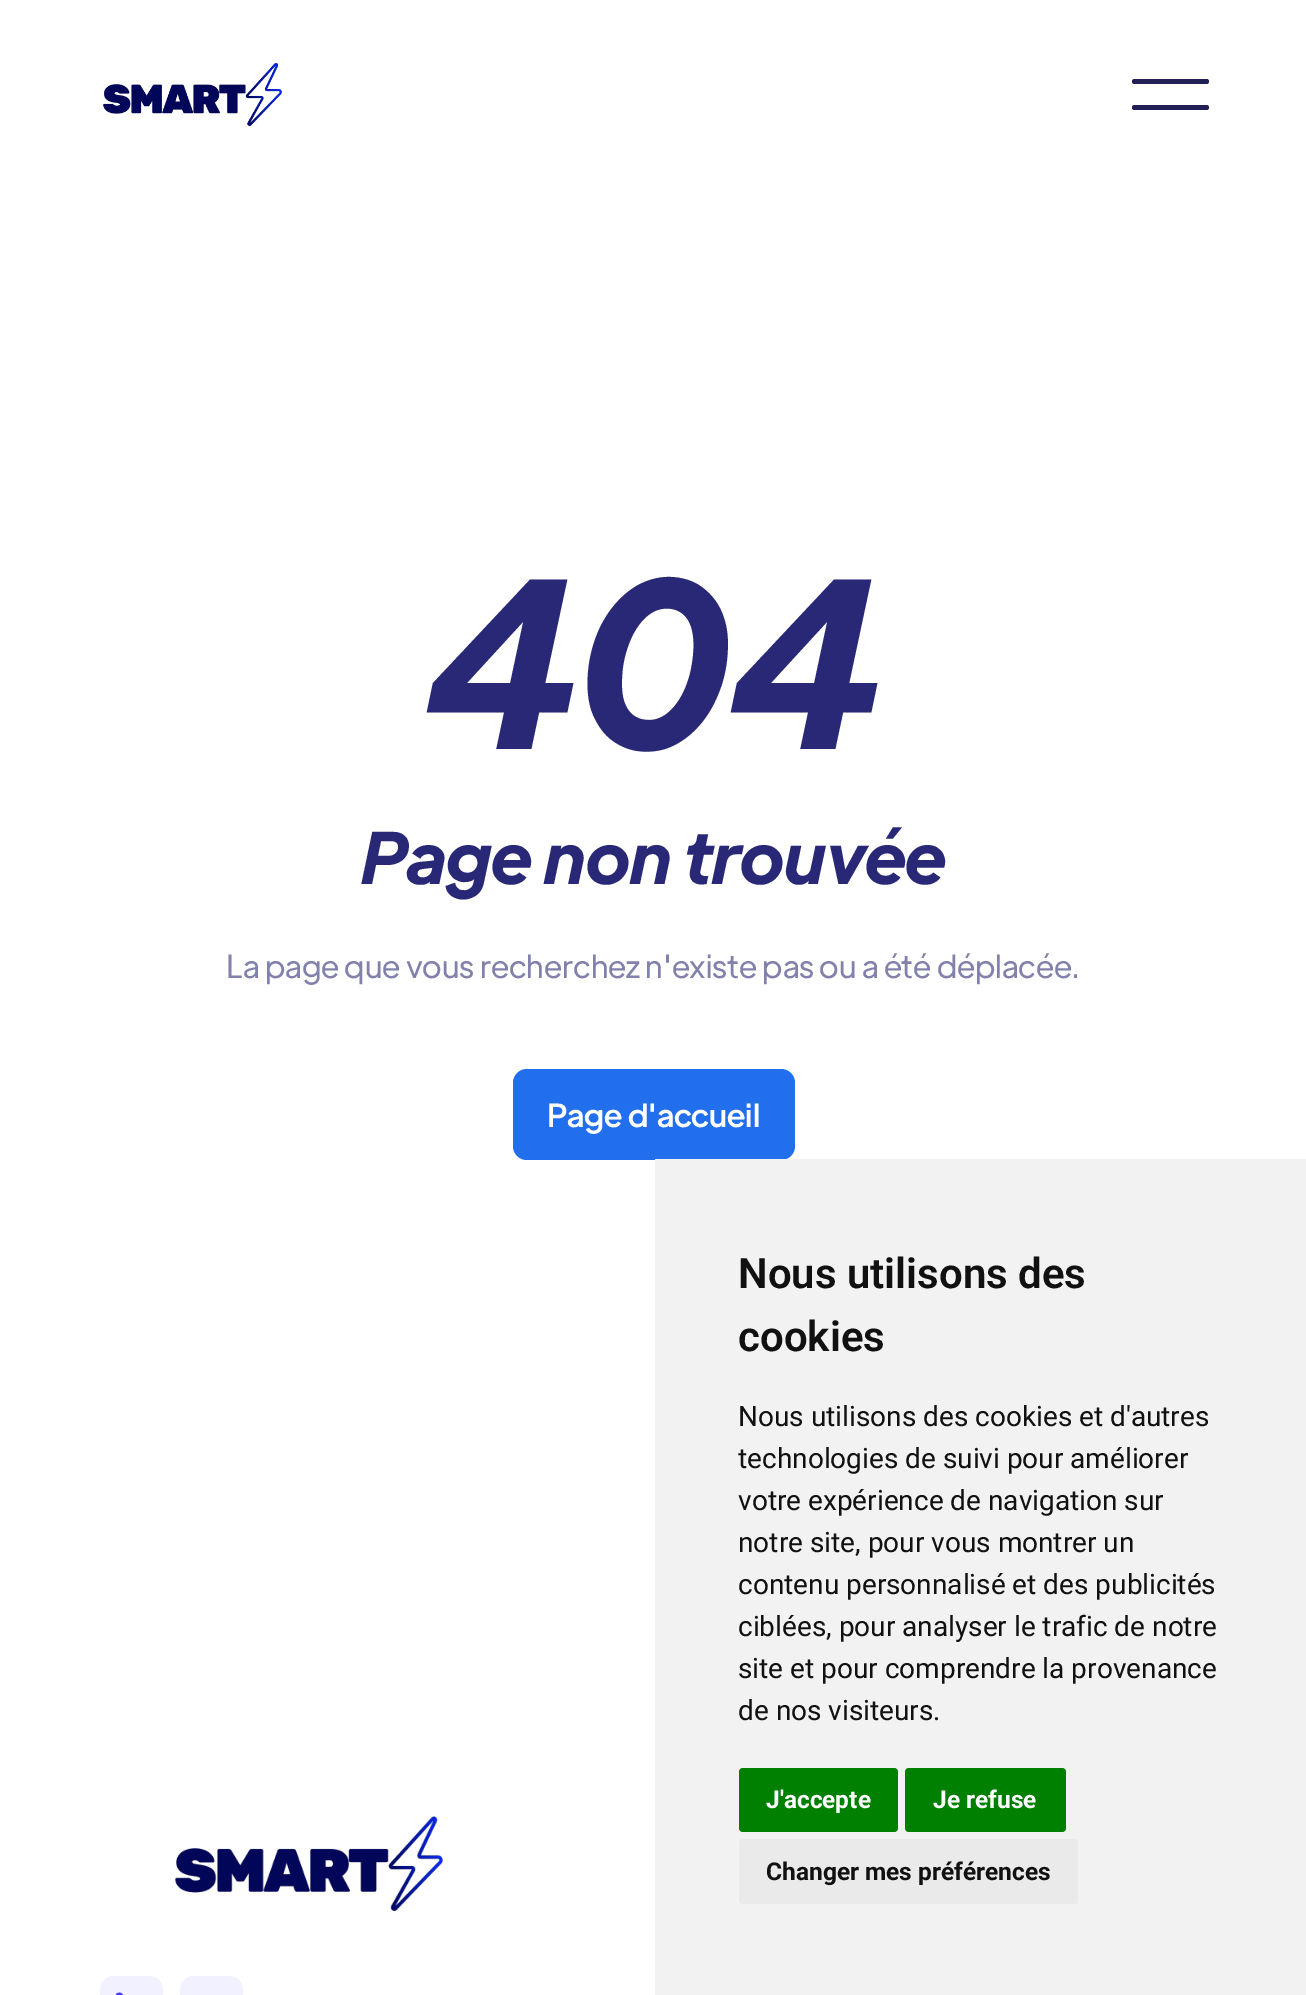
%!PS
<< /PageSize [1306 1995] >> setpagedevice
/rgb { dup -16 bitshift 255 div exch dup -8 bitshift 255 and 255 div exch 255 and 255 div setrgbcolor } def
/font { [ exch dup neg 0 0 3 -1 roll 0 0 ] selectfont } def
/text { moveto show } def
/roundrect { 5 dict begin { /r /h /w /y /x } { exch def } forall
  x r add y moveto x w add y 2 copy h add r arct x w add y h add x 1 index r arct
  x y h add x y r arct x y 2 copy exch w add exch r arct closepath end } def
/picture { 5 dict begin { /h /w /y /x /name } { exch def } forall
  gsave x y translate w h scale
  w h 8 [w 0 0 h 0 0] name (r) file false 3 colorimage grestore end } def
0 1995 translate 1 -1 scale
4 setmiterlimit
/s1 { /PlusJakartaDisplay-BoldItalic 227.5 font 16#282876 rgb } def
/s2 { /PlusJakartaDisplay-BoldItalic 70 font 16#282876 rgb } def
/s3 { /PlusJakartaDisplay-Regular 31.5 font 16#8181AC rgb } def
/s4 { /PlusJakartaDisplay-Medium 31.5 font 16#FFFFFF rgb } def
/s5 { /Roboto-SemiBold 42 font 16#111111 rgb } def
/s6 { /Roboto-Regular 28 font 16#111111 rgb } def
/s7 { /Roboto-Bold 24.5 font 16#FFFFFF rgb } def
/s8 { /Roboto-Bold 24.5 font 16#111111 rgb } def
16#FFFFFF rgb
0 0 1306 1995 rectfill
(pic1.raw) 103 63 179 63 picture
16#211F54 rgb
1132 79 77 5 2.5 roundrect fill
1132 105 77 5 2.5 roundrect fill
s1
(404) 425 749 text
s2
(Page non trouvée) 361 884 text
s3
(La page que vous recherchez n'existe pas ou a été déplacée.) 226 978 text
16#216FED rgb
513 1069 282 91 14 roundrect fill
s4
(Page d'accueil) 547 1127 text
16#F2F2F2 rgb
655 1159 651 836 rectfill
s5
(Nous utilisons des) 738 1288 text
(cookies) 738 1351 text
s6
(Nous utilisons des cookies et d'autres) 738 1426 text
(technologies de suivi pour améliorer) 738 1468 text
(votre expérience de navigation sur) 738 1510 text
(notre site, pour vous montrer un) 738 1552 text
(contenu personnalisé et des publicités) 738 1594 text
(ciblées, pour analyser le trafic de notre) 738 1636 text
(site et pour comprendre la provenance) 738 1678 text
(de nos visiteurs.) 738 1720 text
16#008000 rgb
739 1768 159 64 4 roundrect fill
s7
(J'accepte) 766 1808 text
16#008000 rgb
905 1768 161 64 4 roundrect fill
s7
(Je refuse) 933 1808 text
16#EAEAEA rgb
739 1839 339 65 4 roundrect fill
s8
(Changer mes préférences) 766 1880 text
(pic2.raw) 174 1816 269 95 picture
16#F2F1FF rgb
100 1976 63 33 14 roundrect fill
(pic3.raw) 115 1992 8 3 picture
180 1976 63 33 14 roundrect fill
showpage
